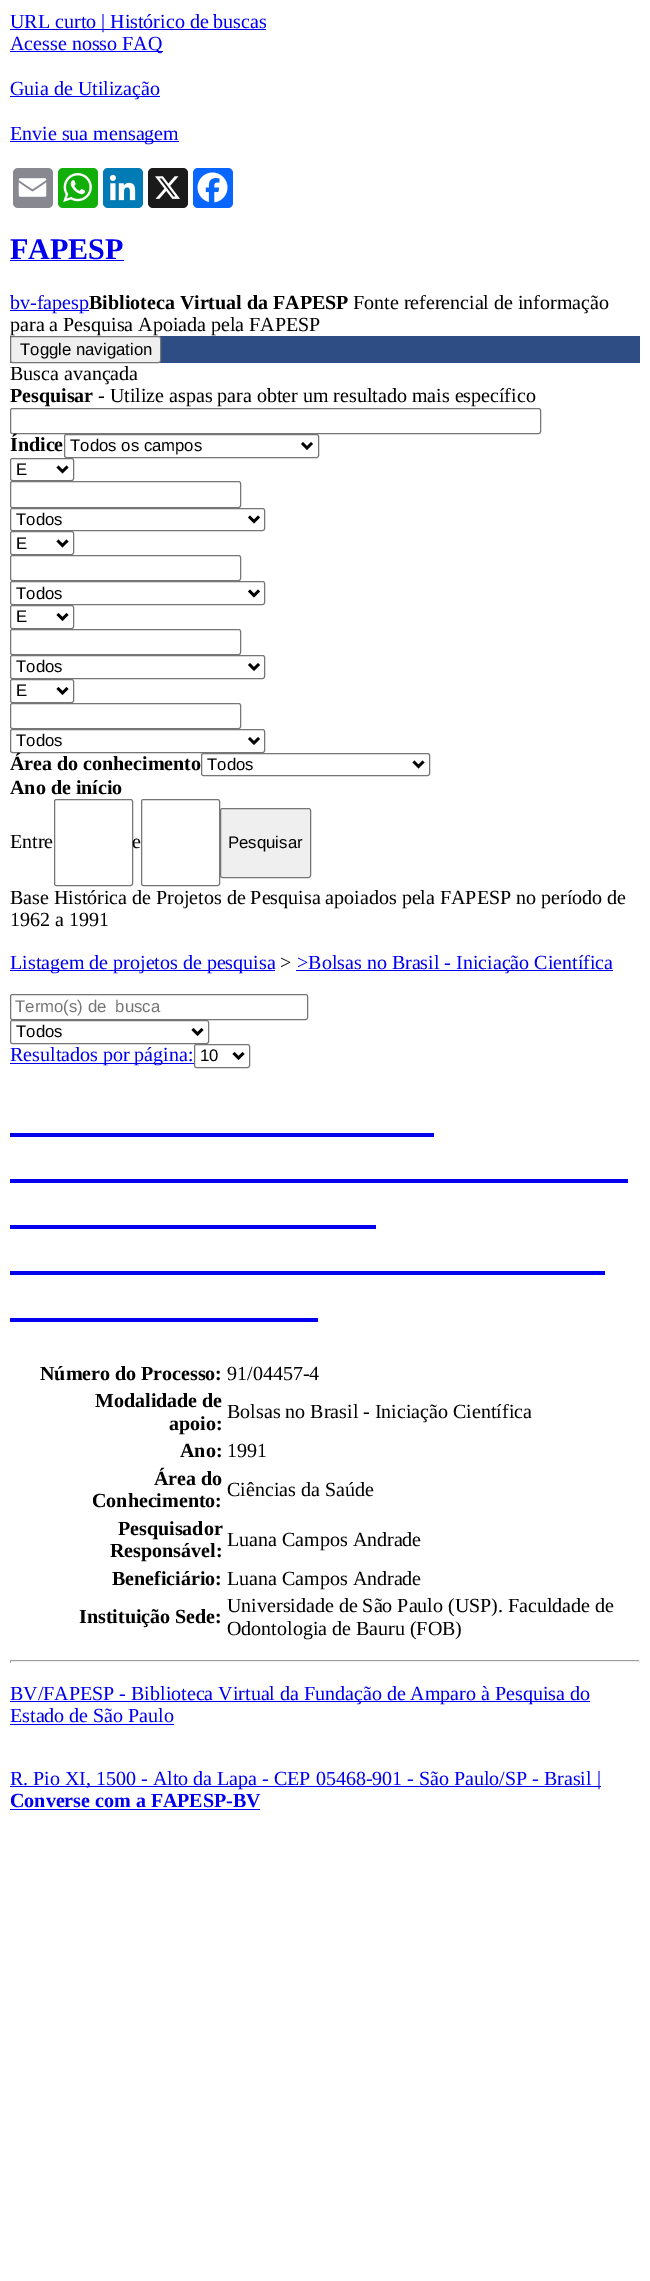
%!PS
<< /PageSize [650 2281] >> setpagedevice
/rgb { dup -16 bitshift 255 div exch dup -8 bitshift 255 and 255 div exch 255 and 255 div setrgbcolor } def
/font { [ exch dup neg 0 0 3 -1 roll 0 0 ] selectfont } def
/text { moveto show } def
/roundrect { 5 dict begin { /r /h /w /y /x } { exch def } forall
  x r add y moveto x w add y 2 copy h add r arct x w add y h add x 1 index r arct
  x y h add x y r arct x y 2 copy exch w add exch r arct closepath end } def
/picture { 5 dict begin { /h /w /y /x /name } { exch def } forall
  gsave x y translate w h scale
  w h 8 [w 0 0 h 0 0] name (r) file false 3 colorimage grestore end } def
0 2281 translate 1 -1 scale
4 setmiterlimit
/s1 { /LiberationSerif-Regular 20 font 16#0000EE rgb } def
/s2 { /LiberationSerif-Bold 30 font 16#0000EE rgb } def
/s3 { /LiberationSerif-Bold 20 font 16#000000 rgb } def
/s4 { /LiberationSerif-Regular 20 font 16#000000 rgb } def
/s5 { /LiberationSans-Regular 16.75 font 16#000000 rgb } def
/s6 { /LiberationSans-Regular 16.75 font 16#757575 rgb } def
/s7 { /LiberationSerif-Bold 20 font 16#0000EE rgb } def
16#FFFFFF rgb
0 0 650 2281 rectfill
16#0000EE rgb
10 29 256 1 rectfill
s1
(URL curto | Histórico de buscas) 10 28 text
10 51 153 1 rectfill
(Acesse nosso FAQ) 10 50 text
10 96 150 1 rectfill
(Guia de Utilização) 10 95 text
10 141 169 1 rectfill
(Envie sua mensagem) 10 140 text
16#888990 rgb
13 168 40 40 5 roundrect fill
(pic1.raw) 18 178 29 19 picture
16#12AF0A rgb
58 168 40 40 5 roundrect fill
(pic2.raw) 63 173 29 29 picture
16#007BB5 rgb
103 168 40 40 5 roundrect fill
(pic3.raw) 109 174 27 27 picture
16#1A1A1A rgb
148 168 40 40 5 roundrect fill
(pic4.raw) 155 176 25 23 picture
16#0866FF rgb
193 168 40 40 5 roundrect fill
(pic5.raw) 197 172 31 31 picture
s2
(FAPESP) 10 259 text
10 260 114 1 rectfill
10 310 79 1 rectfill
s1
(bv-fapesp) 10 309 text
s3
(Biblioteca Virtual da FAPESP) 89 309 text
s4
(Fonte referencial de informação) 353 309 text
(para a Pesquisa Apoiada pela FAPESP) 10 331 text
16#2E4D85 rgb
10 336 630 27 rectfill
16#EFEFEF rgb
10.5 336.5 150 26 2 roundrect gsave fill grestore
16#767676 rgb
stroke
s5
(Toggle navigation) 20 355 text
s4
(Busca avançada) 10 380 text
s3
(Pesquisar) 10 402 text
s4
(- Utilize aspas para obter um resultado mais específico) 98 402 text
16#767676 rgb
10.5 408.5 530 25 2 roundrect stroke
s3
(Índice) 10 451 text
16#767676 rgb
64.5 434.5 254 23 2 roundrect stroke
16#000000 rgb
2.5 setlinewidth
302 443 moveto 307 448 lineto 312 443 lineto stroke
s5
(Todos os campos) 70 451 text
16#767676 rgb
1 setlinewidth
10.5 458.5 63 22 2 roundrect stroke
16#000000 rgb
2.5 setlinewidth
57.5 466.5 moveto 62.5 471.5 lineto 67.5 466.5 lineto stroke
(E) 16 475 text
16#767676 rgb
1 setlinewidth
10.5 481.5 230 26 2 roundrect stroke
10.5 508.5 254 22 2 roundrect stroke
16#000000 rgb
2.5 setlinewidth
249 516.5 moveto 254 521.5 lineto 259 516.5 lineto stroke
(Todos) 16 525 text
16#767676 rgb
1 setlinewidth
10.5 531.5 63 23 2 roundrect stroke
16#000000 rgb
2.5 setlinewidth
57.5 540.5 moveto 62.5 545.5 lineto 67.5 540.5 lineto stroke
(E) 16 549 text
16#767676 rgb
1 setlinewidth
10.5 555.5 230 25 2 roundrect stroke
10.5 581.5 254 23 2 roundrect stroke
16#000000 rgb
2.5 setlinewidth
249 590.5 moveto 254 595.5 lineto 259 590.5 lineto stroke
(Todos) 16 599 text
16#767676 rgb
1 setlinewidth
10.5 605.5 63 23 2 roundrect stroke
16#000000 rgb
2.5 setlinewidth
57.5 614 moveto 62.5 619 lineto 67.5 614 lineto stroke
(E) 16 622 text
16#767676 rgb
1 setlinewidth
10.5 629.5 230 25 2 roundrect stroke
10.5 655.5 254 23 2 roundrect stroke
16#000000 rgb
2.5 setlinewidth
249 664 moveto 254 669 lineto 259 664 lineto stroke
(Todos) 16 672 text
16#767676 rgb
1 setlinewidth
10.5 679.5 63 23 2 roundrect stroke
16#000000 rgb
2.5 setlinewidth
57.5 688 moveto 62.5 693 lineto 67.5 688 lineto stroke
(E) 16 696 text
16#767676 rgb
1 setlinewidth
10.5 703.5 230 25 2 roundrect stroke
10.5 729.5 254 23 2 roundrect stroke
16#000000 rgb
2.5 setlinewidth
249 738 moveto 254 743 lineto 259 738 lineto stroke
(Todos) 16 746 text
s3
(Área do conhecimento) 10 770 text
16#767676 rgb
1 setlinewidth
201.5 753.5 228 22 2 roundrect stroke
16#000000 rgb
2.5 setlinewidth
413.5 761.5 moveto 418.5 766.5 lineto 423.5 761.5 lineto stroke
s5
(Todos) 207 770 text
s3
(Ano de início) 10 794 text
s4
(Entre) 10 848 text
16#767676 rgb
1 setlinewidth
54.5 799.5 78 86 2 roundrect stroke
s4
(e) 132 848 text
16#767676 rgb
141.5 799.5 78 86 2 roundrect stroke
16#EFEFEF rgb
220.5 808.5 90 69 2 roundrect gsave fill grestore
16#767676 rgb
stroke
s5
(Pesquisar) 228 848 text
s4
(Base Histórica de Projetos de Pesquisa apoiados pela FAPESP no período de) 10 904 text
(1962 a 1991) 10 926 text
16#0000EE rgb
10 970 265 1 rectfill
(Listagem de projetos de pesquisa) 10 969 text
s4
(>) 280 969 text
16#0000EE rgb
296 970 317 1 rectfill
(>Bolsas no Brasil - Iniciação Científica) 297 969 text
16#767676 rgb
10.5 994.5 297 25 2 roundrect stroke
s6
(Termo\(s\) de  busca) 15 1012 text
16#767676 rgb
10.5 1020.5 198 23 2 roundrect stroke
16#000000 rgb
2.5 setlinewidth
192.5 1029 moveto 197.5 1034 lineto 202.5 1029 lineto stroke
(Todos) 16 1037 text
16#0000EE rgb
10 1063 184 1 rectfill
s1
(Resultados por página:) 10 1061 text
16#767676 rgb
1 setlinewidth
194.5 1044.5 55 23 2 roundrect stroke
16#000000 rgb
2.5 setlinewidth
233.5 1053 moveto 238.5 1058 lineto 243.5 1053 lineto stroke
s5
(10) 200 1061 text
16#0000EE rgb
10 1133 424 4 rectfill
10 1179 618 4 rectfill
10 1225 366 4 rectfill
10 1271 595 4 rectfill
10 1318 308 4 rectfill
s3
(Número do Processo:) 40 1380 text
s4
(91/04457-4) 227 1380 text
s3
(Modalidade de) 95 1407 text
(apoio:) 169 1430 text
s4
(Bolsas no Brasil - Iniciação Científica) 227 1418 text
s3
(Ano:) 180 1457 text
s4
(1991) 227 1457 text
s3
(Área do) 154 1485 text
(Conhecimento:) 92 1507 text
s4
(Ciências da Saúde) 227 1496 text
s3
(Pesquisador) 118 1535 text
(Responsável:) 110 1557 text
s4
(Luana Campos Andrade) 227 1546 text
s3
(Beneficiário:) 112 1585 text
s4
(Luana Campos Andrade) 227 1585 text
s3
(Instituição Sede:) 79 1623 text
s4
(Universidade de São Paulo \(USP\). Faculdade de) 227 1612 text
(Odontologia de Bauru \(FOB\)) 227 1635 text
16#9F9F9F rgb
10 1660 630 1 rectfill
16#EEEEEE rgb
639 1660 1 3 rectfill
10 1661 630 1 rectfill
16#9F9F9F rgb
10 1660 1 3 rectfill
16#0000EE rgb
10 1701 580 1 rectfill
(BV/FAPESP - Biblioteca Virtual da Fundação de Amparo à Pesquisa do) 10 1700 text
(Estado de São Paulo) 10 1722 text
10 1724 164 1 rectfill
10 1786 591 1 rectfill
(R. Pio XI, 1500 - Alto da Lapa - CEP 05468-901 - São Paulo/SP - Brasil |) 10 1785 text
s7
(Converse com a FAPESP-BV) 10 1807 text
10 1809 250 1 rectfill
showpage
